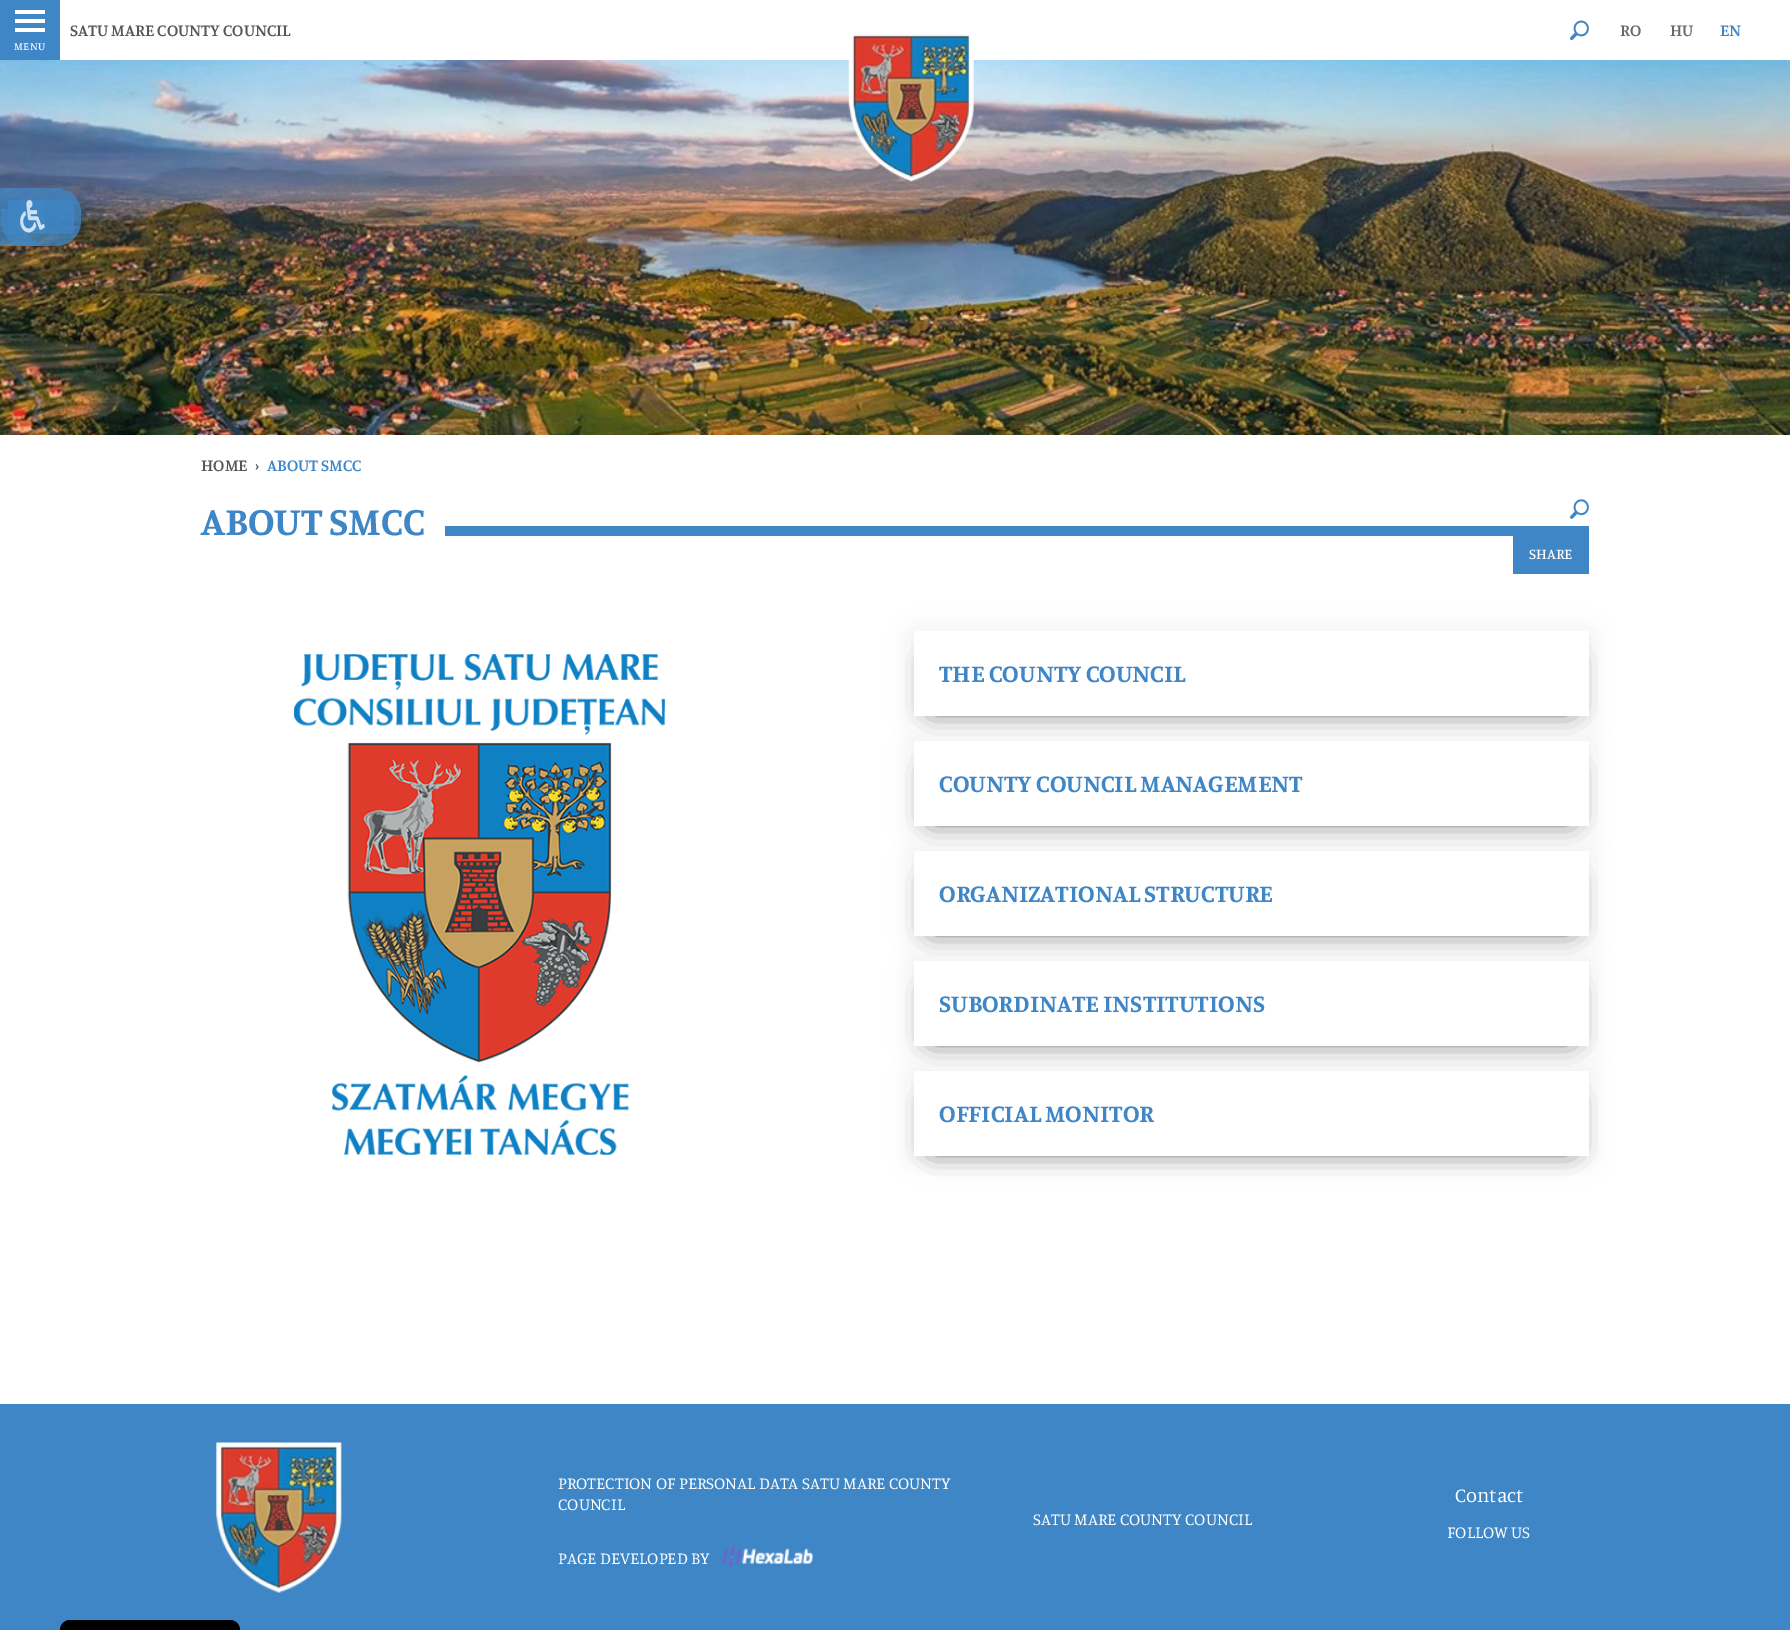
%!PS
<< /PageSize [1790 1630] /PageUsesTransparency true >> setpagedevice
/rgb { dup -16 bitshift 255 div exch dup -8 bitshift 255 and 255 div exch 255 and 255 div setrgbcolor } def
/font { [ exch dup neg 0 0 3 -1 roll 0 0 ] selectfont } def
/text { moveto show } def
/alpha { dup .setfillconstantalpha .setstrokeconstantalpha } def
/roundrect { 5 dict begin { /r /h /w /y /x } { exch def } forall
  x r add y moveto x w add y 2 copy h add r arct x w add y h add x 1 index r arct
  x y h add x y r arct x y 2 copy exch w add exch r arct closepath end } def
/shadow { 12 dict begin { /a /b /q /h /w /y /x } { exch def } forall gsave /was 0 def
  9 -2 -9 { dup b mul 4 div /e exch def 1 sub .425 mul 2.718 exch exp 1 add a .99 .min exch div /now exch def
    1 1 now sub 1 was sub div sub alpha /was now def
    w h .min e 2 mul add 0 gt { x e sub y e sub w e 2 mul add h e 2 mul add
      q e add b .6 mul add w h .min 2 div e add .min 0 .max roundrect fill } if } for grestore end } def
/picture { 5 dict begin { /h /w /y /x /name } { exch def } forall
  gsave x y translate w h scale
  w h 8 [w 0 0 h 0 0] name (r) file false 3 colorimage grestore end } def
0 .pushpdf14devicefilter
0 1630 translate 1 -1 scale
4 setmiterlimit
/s1 { /Manuale-SemiBold 17 font 16#575757 rgb } def
/s2 { /Manuale-SemiBold 17 font 16#686868 rgb } def
/s3 { /Manuale-SemiBold 17 font 16#3F86C6 rgb } def
/s4 { /Manuale-Bold 40 font 16#3F86C6 rgb } def
/s5 { /Manuale-Medium 15 font 16#FFFFFF rgb } def
/s6 { /Manuale-Bold 25 font 16#3F86C6 rgb } def
/s7 { /Manuale-Regular 17 font 16#FFFFFF rgb } def
/s8 { /Manuale-Regular 20 font 16#FFFFFF rgb } def
16#FFFFFF rgb
0 0 1790 1630 rectfill
s1
(SATU MARE COUNTY COUNCIL) 70 36 text
16#3F86C6 rgb
0 0 60 60 rectfill
16#FFFFFF rgb
15 10 30 4 rectfill
15 19 30 4 rectfill
15 28 30 4 rectfill
/Manuale-Medium 11 font
14 50 moveto 0.5 0 (MENU) ashow
(pic1.raw) 1570 20 19 21 picture
s2
(RO) 1620 36 text
(HU) 1670 36 text
s3
(EN) 1720 36 text
(pic3.raw) 0 60 1790 375 picture
(pic2.raw) 848 33 126 149 picture
s1
(HOME) 201 471 text
(›) 255 471 text
s3
(ABOUT SMCC) 267 471 text
s4
(ABOUT SMCC) 201 535 text
(pic4.raw) 1570 499 19 20 picture
445 526 1144 10 rectfill
1513 536 76 38 rectfill
s5
(SHARE) 1529 559 text
(pic5.raw) 294 654 371 501 picture
16#000000 rgb
933 660 637 48 0 12.5 1 shadow
16#C4C4C4 rgb
914 634 675 85 0 12.5 0.34 shadow
16#FFFFFF rgb
914 631 675 85 rectfill
s6
(THE COUNTY COUNCIL) 939 682 text
16#000000 rgb
933 770 637 48 0 12.5 1 shadow
16#C4C4C4 rgb
914 744 675 85 0 12.5 0.34 shadow
16#FFFFFF rgb
914 741 675 85 rectfill
s6
(COUNTY COUNCIL MANAGEMENT) 939 792 text
16#000000 rgb
933 880 637 48 0 12.5 1 shadow
16#C4C4C4 rgb
914 854 675 85 0 12.5 0.34 shadow
16#FFFFFF rgb
914 851 675 85 rectfill
s6
(ORGANIZATIONAL STRUCTURE) 939 902 text
16#000000 rgb
933 990 637 48 0 12.5 1 shadow
16#C4C4C4 rgb
914 964 675 85 0 12.5 0.34 shadow
16#FFFFFF rgb
914 961 675 85 rectfill
s6
(SUBORDINATE INSTITUTIONS) 939 1012 text
16#000000 rgb
933 1100 637 48 0 12.5 1 shadow
16#C4C4C4 rgb
914 1074 675 85 0 12.5 0.34 shadow
16#FFFFFF rgb
914 1071 675 85 rectfill
s6
(OFFICIAL MONITOR) 939 1122 text
0 1404 1790 226 rectfill
(pic6.raw) 216 1442 126 151 picture
s7
(PROTECTION OF PERSONAL DATA SATU MARE COUNTY) 558 1489 text
(COUNCIL) 558 1510 text
(PAGE DEVELOPED BY) 558 1564 text
(pic7.raw) 722 1546 91 21 picture
(SATU MARE COUNTY COUNCIL) 1033 1525 text
s8
(Contact) 1455 1502 text
s7
(FOLLOW US) 1447 1538 text
0.75 alpha
16#3F86C6 rgb
0 188 moveto 56 188 lineto 70 188 81 199 81 213 curveto 81 221 lineto 81 235 70 246 56 246 curveto 0 246 lineto closepath fill
1 209 moveto 1 221 lineto 1 235 12 246 26 246 curveto 45 246 lineto 33 244 24 234 24 221 curveto 24 209 lineto closepath fill
8 200 66 34 rectfill
20 200 25 33 rectfill
1 alpha
(pic8.raw) 20 200 25 33 picture
16#000000 rgb
70 1620 moveto 230 1620 lineto 235.5 1620 240 1624.5 240 1630 curveto 240 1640 lineto 60 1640 lineto 60 1630 lineto 60 1624.5 64.5 1620 70 1620 curveto closepath fill
.poppdf14devicefilter showpage
